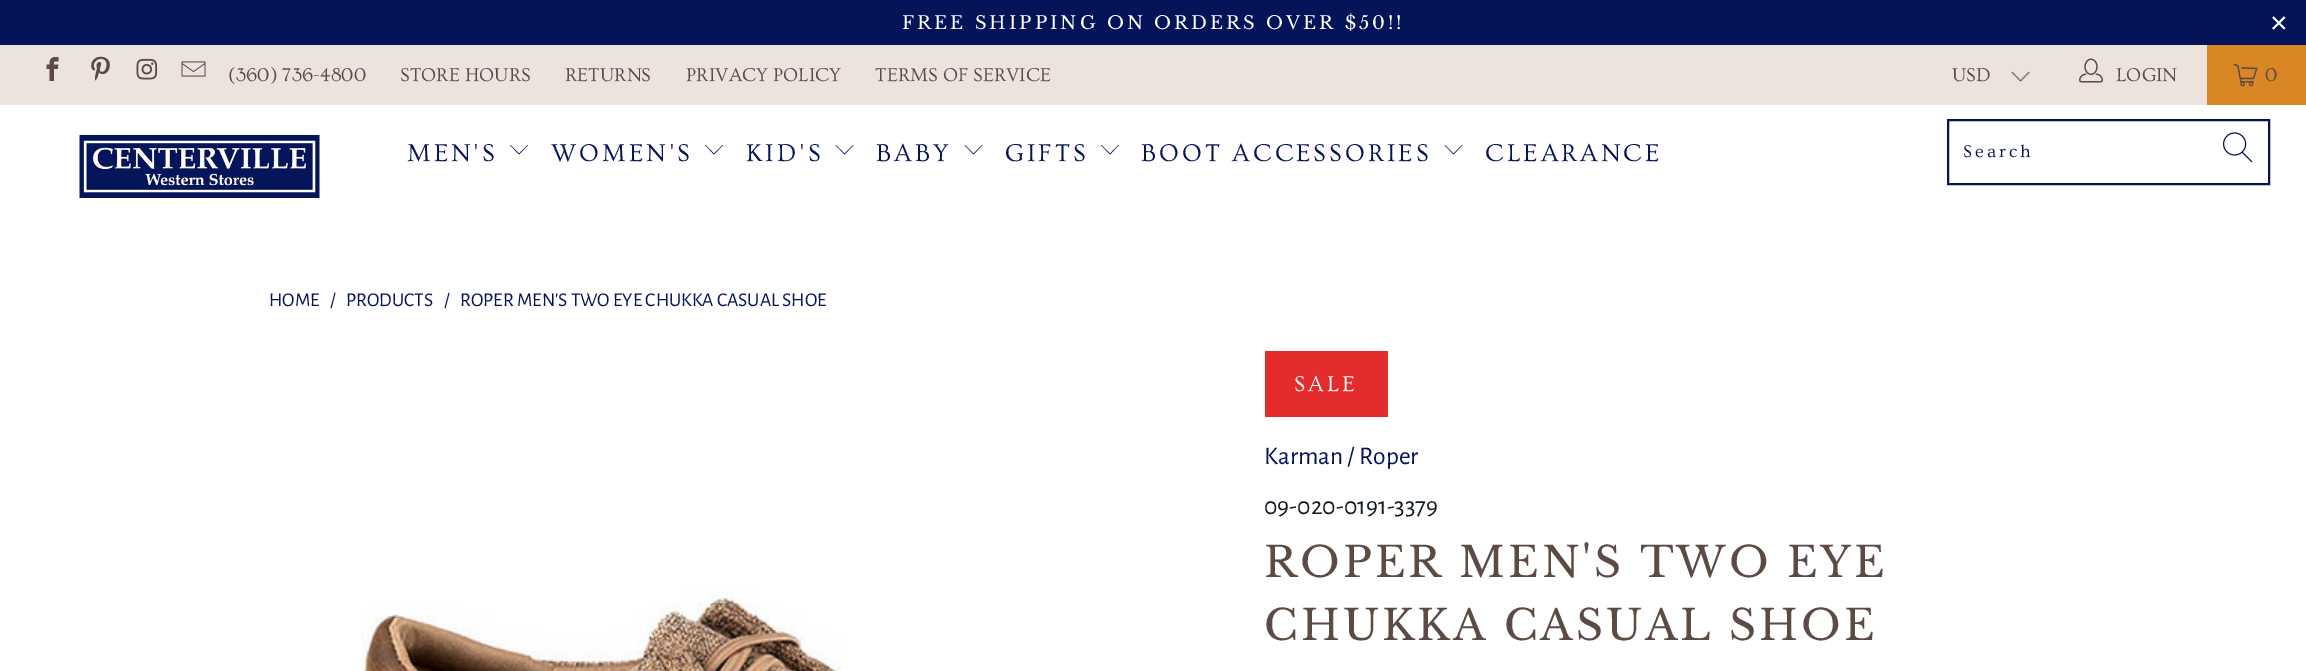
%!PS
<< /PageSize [2306 671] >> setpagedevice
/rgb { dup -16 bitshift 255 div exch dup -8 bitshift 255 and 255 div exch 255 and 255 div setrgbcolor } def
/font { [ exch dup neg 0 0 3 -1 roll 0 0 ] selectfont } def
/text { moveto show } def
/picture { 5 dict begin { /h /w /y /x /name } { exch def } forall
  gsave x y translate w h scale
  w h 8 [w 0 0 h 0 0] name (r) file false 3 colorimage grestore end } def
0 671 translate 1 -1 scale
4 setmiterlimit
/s1 { /Ovo-Regular 19.5 font 16#5C4A44 rgb } def
/s2 { /AlegreyaSans-Regular 19.5 font 16#051459 rgb } def
/s3 { /AlegreyaSans-Regular 25.5 font 16#051459 rgb } def
/s4 { /AlegreyaSans-Regular 25.5 font 16#141C24 rgb } def
16#FFFFFF rgb
0 0 2306 671 rectfill
16#051459 rgb
0 0 2306 45 rectfill
/LibreBaskerville-Regular 18 font
16#FFFFFF rgb
902 29 moveto 3 0 (FREE SHIPPING ON ORDERS OVER $50!!) ashow
/LiberationSans-Regular 30 font
2270 33 moveto 3 0 (×) ashow
16#EDE3DE rgb
0 45 2207 60 rectfill
(pic1.raw) 46 57 13 24 picture
(pic2.raw) 91 56 19 25 picture
(pic3.raw) 136 58 22 22 picture
(pic4.raw) 181 61 25 16 picture
s1
(\(360\) 736-4800) 228 81 text
(STORE HOURS) 400 81 text
(RETURNS) 565 81 text
(PRIVACY POLICY) 686 81 text
(TERMS OF SERVICE) 875 81 text
(pic5.raw) 2011 71 19 11 picture
(USD) 1952 81 text
(pic6.raw) 2079 58 24 25 picture
(LOGIN) 2116 81 text
16#D98724 rgb
2207 45 99 60 rectfill
(pic7.raw) 2233 63 25 24 picture
s1
(0) 2265 81 text
(pic8.raw) 79 135 241 63 picture
/Ovo-Regular 25.5 font
16#051459 rgb
407 161 moveto 3 0 (MEN'S) ashow
519 154.5 moveto 510 145 lineto 510.5 145 lineto 519 153.5 lineto 527.5 145 lineto 528 145 lineto closepath fill
551 161 moveto 3 0 (WOMEN'S) ashow
714 154.5 moveto 705 145 lineto 705.5 145 lineto 714 153.5 lineto 722.5 145 lineto 723 145 lineto closepath fill
746 161 moveto 3 0 (KID'S) ashow
844.5 154.5 moveto 835.5 145 lineto 836 145 lineto 844.5 153.5 lineto 853 145 lineto 853.5 145 lineto closepath fill
876 161 moveto 3 0 (BABY) ashow
973.5 154.5 moveto 964.5 145 lineto 965 145 lineto 973.5 153.5 lineto 982 145 lineto 982.5 145 lineto closepath fill
1005 161 moveto 3 0 (GIFTS) ashow
1110 154.5 moveto 1101 145 lineto 1101.5 145 lineto 1110 153.5 lineto 1118.5 145 lineto 1119 145 lineto closepath fill
1141 161 moveto 3 0 (BOOT ACCESSORIES) ashow
1453.5 154.5 moveto 1444.5 145 lineto 1445 145 lineto 1453.5 153.5 lineto 1462 145 lineto 1462.5 145 lineto closepath fill
1485 161 moveto 3 0 (CLEARANCE) ashow
2 setlinewidth
1948 120 321 64 rectstroke
/Ovo-Regular 18 font
1963 157 moveto 3 0 (Search) ashow
(pic9.raw) 2223 132 30 31 picture
s2
(HOME) 269 306 text
(/) 330 306 text
(PRODUCTS) 346 306 text
(/) 444 306 text
(ROPER MEN'S TWO EYE CHUKKA CASUAL SHOE) 460 306 text
(pic10.raw) 361 591 481 80 picture
16#E32C2B rgb
1265 351 123 66 rectfill
/Ovo-Regular 22.5 font
16#FFFFFF rgb
1294 391 moveto 3 0 (SALE) ashow
s3
(Karman / Roper) 1264 464 text
s4
(09-020-0191-3379) 1264 514 text
/LibreBaskerville-Regular 42 font
16#5C4A44 rgb
1264 577 moveto 3 0 (ROPER MEN'S TWO EYE) ashow
1264 640 moveto 3 0 (CHUKKA CASUAL SHOE) ashow
showpage
